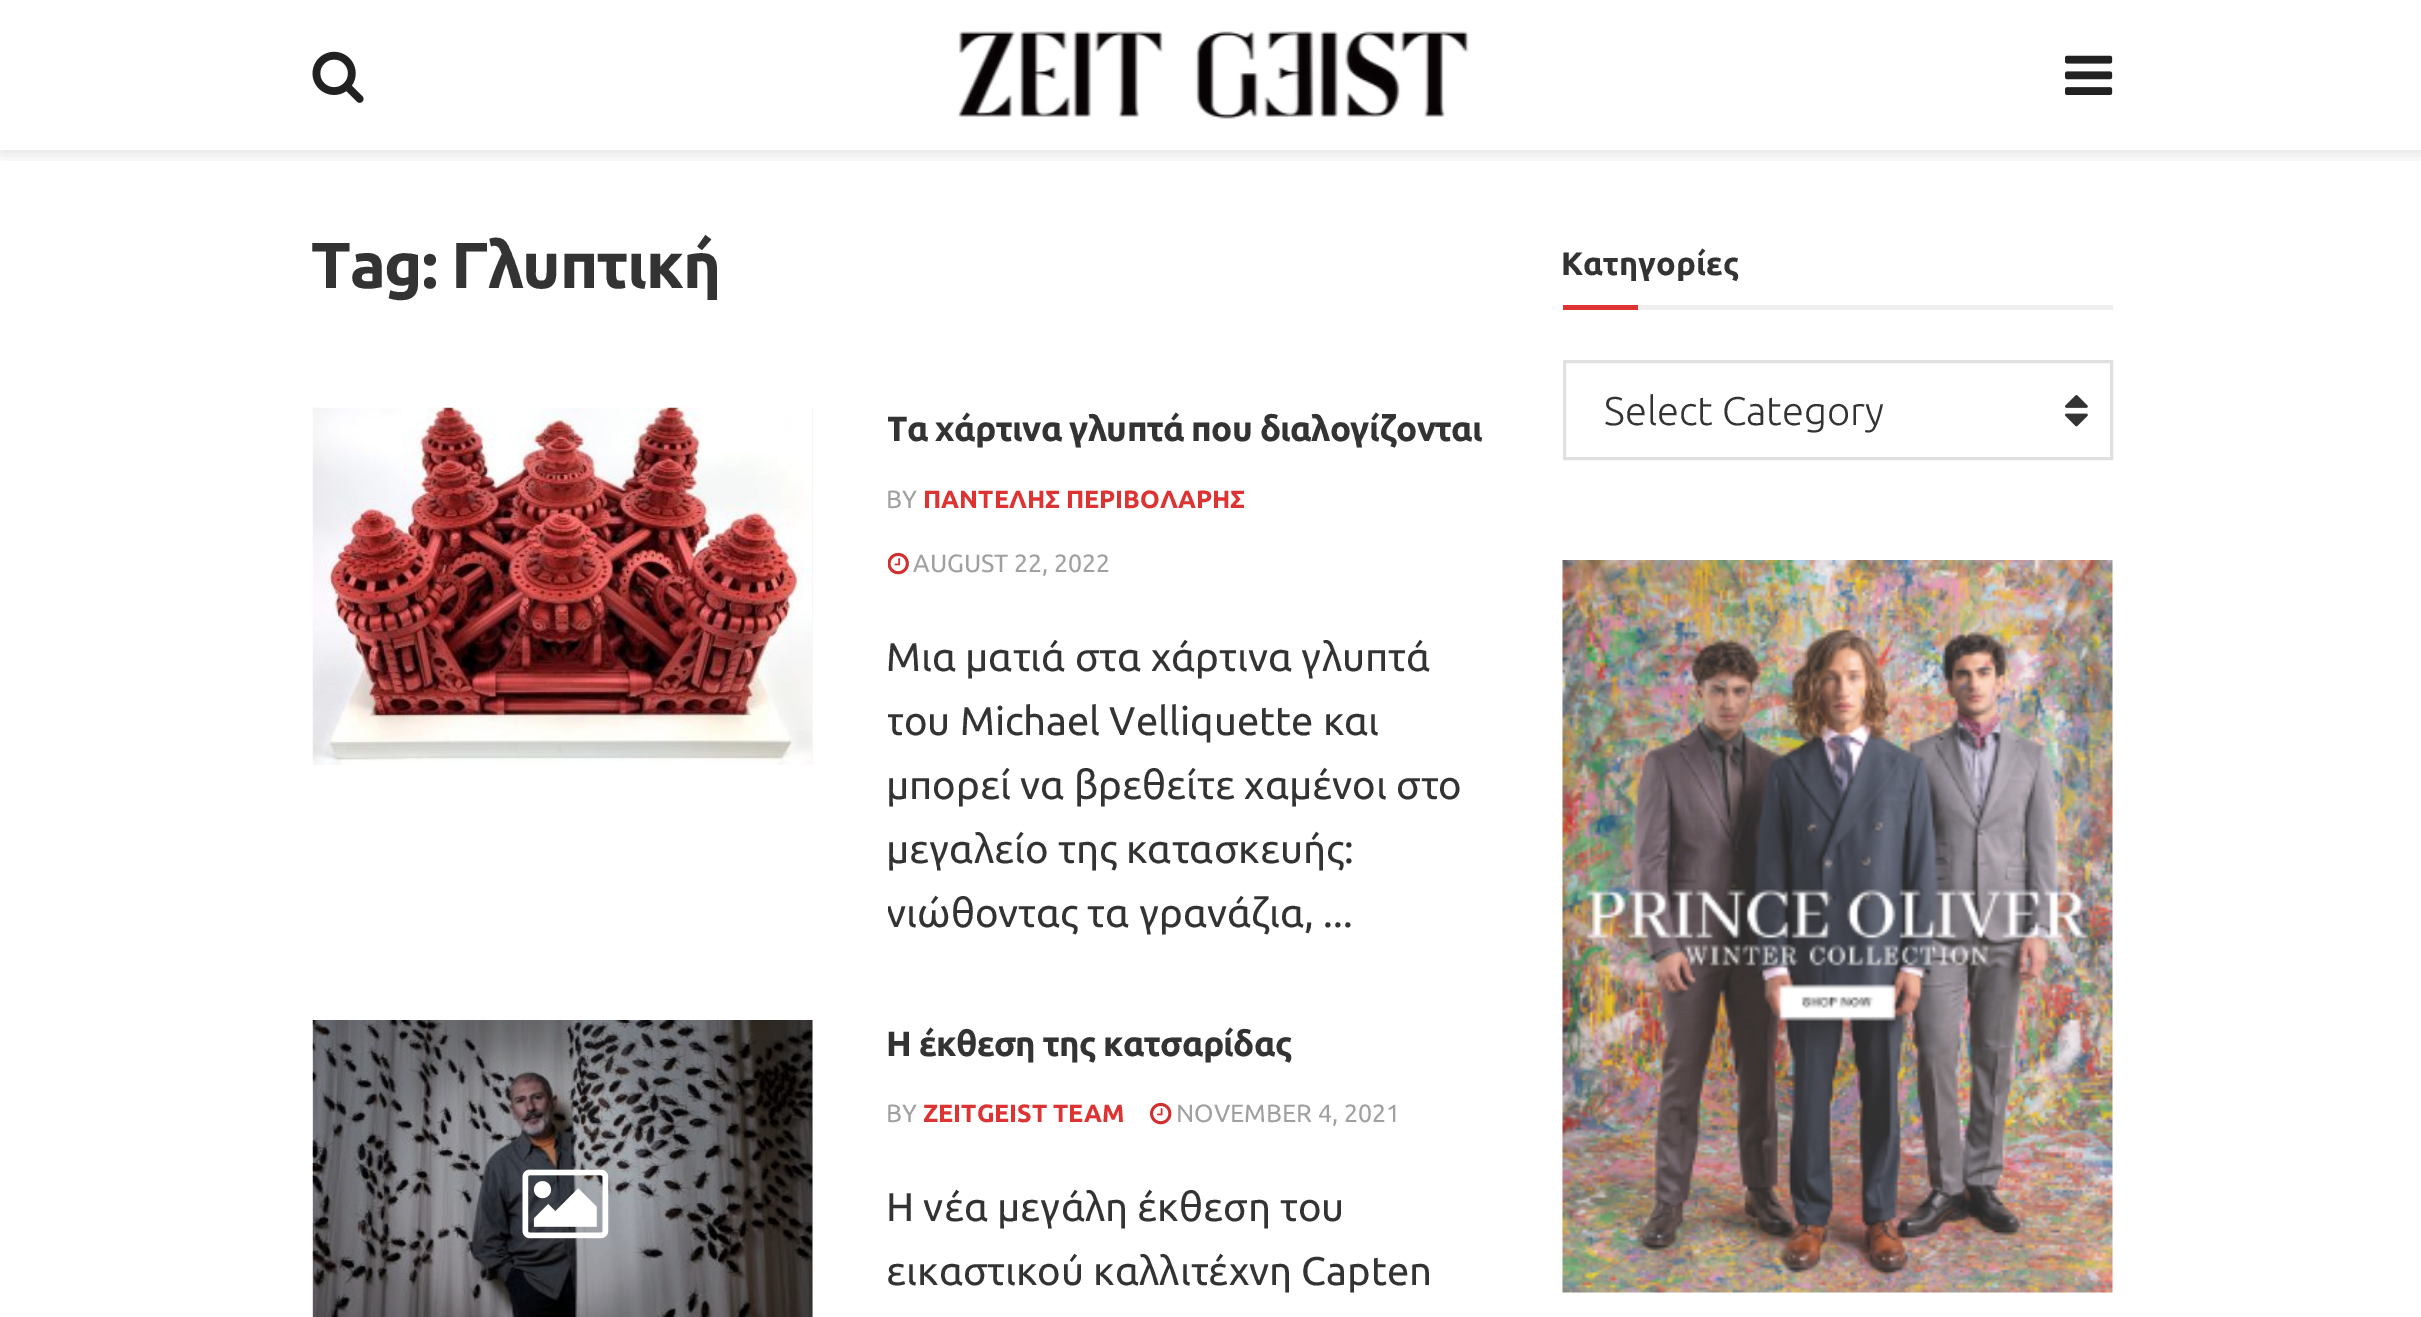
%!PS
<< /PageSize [2421 1317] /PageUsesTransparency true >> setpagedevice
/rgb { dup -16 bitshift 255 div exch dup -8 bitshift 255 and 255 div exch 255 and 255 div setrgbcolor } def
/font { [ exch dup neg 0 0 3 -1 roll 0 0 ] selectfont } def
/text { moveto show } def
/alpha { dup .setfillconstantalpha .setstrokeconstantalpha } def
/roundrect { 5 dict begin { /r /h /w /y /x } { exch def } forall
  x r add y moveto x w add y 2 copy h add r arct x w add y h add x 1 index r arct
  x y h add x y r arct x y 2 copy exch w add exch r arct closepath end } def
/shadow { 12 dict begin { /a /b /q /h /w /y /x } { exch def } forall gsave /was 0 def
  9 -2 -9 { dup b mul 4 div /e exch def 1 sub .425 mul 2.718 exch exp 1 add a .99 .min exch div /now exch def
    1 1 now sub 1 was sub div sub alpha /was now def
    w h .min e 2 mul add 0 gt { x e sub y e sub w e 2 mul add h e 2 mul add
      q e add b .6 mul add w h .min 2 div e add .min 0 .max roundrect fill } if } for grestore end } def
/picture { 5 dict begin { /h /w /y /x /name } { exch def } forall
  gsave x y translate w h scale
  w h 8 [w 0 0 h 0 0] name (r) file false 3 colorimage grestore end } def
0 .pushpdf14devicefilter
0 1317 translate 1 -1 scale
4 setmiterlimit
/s1 { /Ubuntu-Regular 25 font 16#A0A0A0 rgb } def
/s2 { /Ubuntu-Bold 25 font 16#DD3333 rgb } def
/s3 { /Ubuntu-Regular 40 font 16#333333 rgb } def
/s4 { /Ubuntu-Bold 32.5 font 16#333333 rgb } def
/s5 { /Ubuntu-Light 40 font 16#333333 rgb } def
16#FFFFFF rgb
0 0 2421 1317 rectfill
gsave
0 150 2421 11 rectclip
16#000000 rgb
0 5 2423 150 0 7.5 0.1 shadow
grestore
(pic1.raw) 312 51 52 52 picture
(pic2.raw) 957 31 512 88 picture
(pic3.raw) 2065 55 48 40 picture
/Ubuntu-Bold 65 font
16#333333 rgb
311 288 moveto -1.25 0 (Tag: Γλυπτική) ashow
16#F7F7F7 rgb
812 408 1 357 rectfill
(pic4.raw) 312 407 500 358 picture
gsave
888 408 600 537 rectclip
/Ubuntu-Bold 35 font
16#333333 rgb
886 441 moveto -0.7 0 (Τα χάρτινα γλυπτά που διαλογίζονται) ashow
grestore
s1
(BY) 886 508 text
s2
(ΠΑΝΤΕΛΗΣ ΠΕΡΙΒΟΛΑΡΗΣ) 923 508 text
(pic5.raw) 888 552 21 23 picture
s1
(AUGUST 22, 2022) 913 572 text
s3
(Μια ματιά στα χάρτινα γλυπτά) 886 671 text
gsave
888 408 600 537 rectclip
(του Michael Velliquette και) 886 735 text
grestore
(μπορεί να βρεθείτε χαμένοι στο) 886 799 text
(μεγαλείο της κατασκευής:) 886 863 text
gsave
888 408 600 537 rectclip
(νιώθοντας τα γρανάζια, ...) 886 927 text
grestore
16#ADADAD rgb
812 1020 1 297 rectfill
(pic6.raw) 312 1020 501 297 picture
(pic7.raw) 522 1169 87 70 picture
/Ubuntu-Bold 35 font
16#333333 rgb
886 1056 moveto -0.7 0 (Η έκθεση της κατσαρίδας) ashow
s1
(BY) 886 1122 text
s2
(ZEITGEIST TEAM) 923 1122 text
(pic8.raw) 1150 1102 22 23 picture
s1
(NOVEMBER 4, 2021) 1176 1122 text
s3
(Η νέα μεγάλη έκθεση του) 886 1221 text
(εικαστικού καλλιτέχνη Capten) 886 1285 text
16#EEEEEE rgb
1638 305 475 5 rectfill
s4
(Κατηγορίες) 1561 275 text
16#DD3333 rgb
1563 305 75 5 rectfill
16#E0E0E0 rgb
3 setlinewidth
1564.5 361.5 547 97 rectstroke
s5
(Select Category) 1604 425 text
(pic9.raw) 2065 395 23 32 picture
(pic10.raw) 1562 560 551 733 picture
.poppdf14devicefilter showpage
